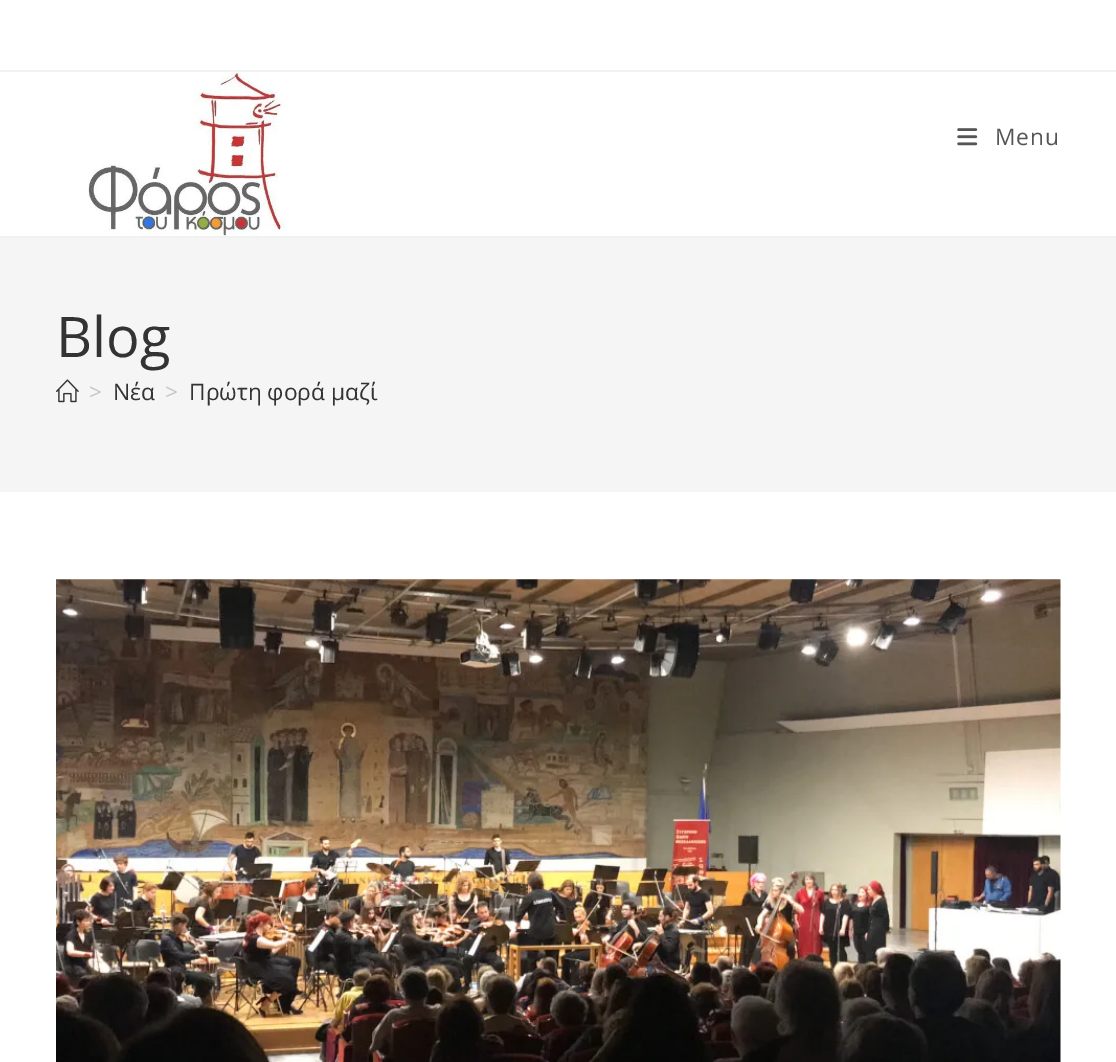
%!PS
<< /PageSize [1116 1062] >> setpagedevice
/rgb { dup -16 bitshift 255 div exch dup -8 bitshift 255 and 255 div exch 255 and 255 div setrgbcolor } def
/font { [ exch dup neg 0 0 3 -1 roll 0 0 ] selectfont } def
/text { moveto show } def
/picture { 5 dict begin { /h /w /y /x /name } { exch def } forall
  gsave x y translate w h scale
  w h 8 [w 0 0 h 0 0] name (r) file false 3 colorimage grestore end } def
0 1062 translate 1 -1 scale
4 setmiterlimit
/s1 { /OpenSans-Regular 56 font 16#333333 rgb } def
/s2 { /OpenSans-Regular 22.75 font 16#C6C6C6 rgb } def
/s3 { /OpenSans-Regular 22.75 font 16#333333 rgb } def
16#FFFFFF rgb
0 0 1116 1062 rectfill
16#F1F1F1 rgb
0 70 1116 2 rectfill
0 236 1116 2 rectfill
(pic1.raw) 88 72 198 164 picture
(pic2.raw) 957 128 21 18 picture
/OpenSans-Regular 22.75 font
16#555555 rgb
995 145 moveto 1 0 (Menu) ashow
16#F5F5F5 rgb
0 238 1116 254 rectfill
s1
(Blog) 56 357 text
(pic3.raw) 56 379 23 24 picture
s2
(>) 89 400 text
s3
(Νέα) 113 400 text
s2
(>) 165 400 text
s3
(Πρώτη φορά μαζί) 189 400 text
(pic4.raw) 56 579 1005 483 picture
showpage
